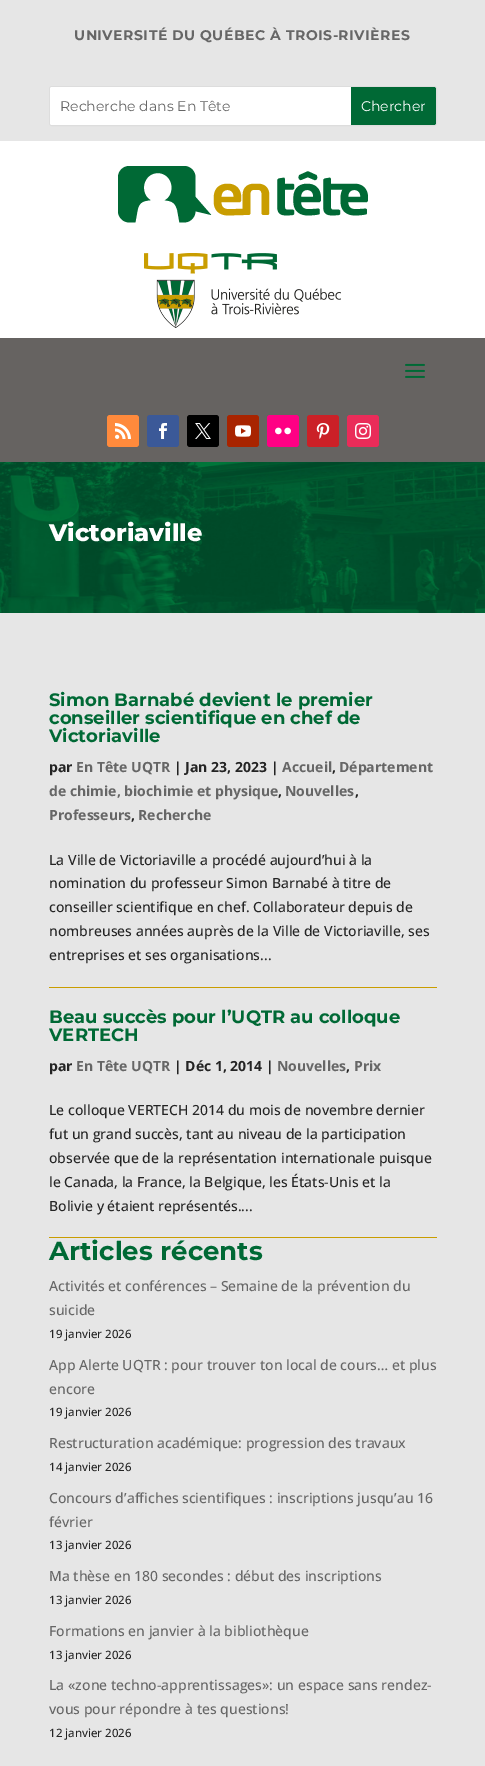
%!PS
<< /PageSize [485 1766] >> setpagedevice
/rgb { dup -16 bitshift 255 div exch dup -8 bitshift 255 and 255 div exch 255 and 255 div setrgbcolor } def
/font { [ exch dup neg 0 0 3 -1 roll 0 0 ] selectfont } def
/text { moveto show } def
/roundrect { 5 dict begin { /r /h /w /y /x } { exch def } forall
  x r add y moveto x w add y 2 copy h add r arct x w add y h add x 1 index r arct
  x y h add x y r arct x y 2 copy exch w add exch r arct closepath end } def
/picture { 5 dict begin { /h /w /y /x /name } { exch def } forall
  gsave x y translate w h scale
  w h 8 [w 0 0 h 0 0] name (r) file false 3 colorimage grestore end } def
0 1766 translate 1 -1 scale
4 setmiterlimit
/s1 { /Montserrat-Regular 14 font 16#666666 rgb } def
/s2 { /Montserrat-Regular 14 font 16#FFFFFF rgb } def
/s3 { /Montserrat-ExtraBold 24 font 16#FFFFFF rgb } def
/s4 { /Montserrat-Bold 18 font 16#006935 rgb } def
/s5 { /OpenSans-Bold 14 font 16#242424 rgb } def
/s6 { /OpenSans-Bold 14 font 16#666666 rgb } def
/s7 { /OpenSans-Medium 14 font 16#242424 rgb } def
/s8 { /Montserrat-Bold 26 font 16#006935 rgb } def
/s9 { /OpenSans-Medium 14 font 16#666666 rgb } def
/s10 { /OpenSans-Medium 11.5 font 16#242424 rgb } def
16#FFFFFF rgb
0 0 485 1766 rectfill
16#E6E6E6 rgb
0 0 485 141 rectfill
/Montserrat-Bold 14 font
16#666666 rgb
74 40 moveto 0.5 0 (UNIVERSITÉ DU QUÉBEC À TROIS-RIVIÈRES) ashow
16#DDDDDD rgb
49.5 86.5 387 39 2.5 roundrect stroke
16#FFFFFF rgb
50 87 386 38 2 roundrect fill
s1
(Recherche dans En Tête) 60 111 text
16#006935 rgb
351 87 moveto 434 87 lineto 435 87 436 88 436 89 curveto 436 123 lineto 436 124 435 125 434 125 curveto 351 125 lineto closepath fill
s2
(Chercher) 361 111 text
(pic1.raw) 118 166 250 57 picture
(pic2.raw) 144 253 197 75 picture
16#666361 rgb
0 338 485 124 rectfill
(pic3.raw) 405 363 20 15 picture
16#FF8A3C rgb
107 415 32 32 3 roundrect fill
(pic4.raw) 115 423 16 16 picture
16#3B5998 rgb
147 415 32 32 3 roundrect fill
(pic5.raw) 159 423 8 16 picture
16#000000 rgb
187 415 32 32 3 roundrect fill
(pic6.raw) 195 423 16 16 picture
16#A82400 rgb
227 415 32 32 3 roundrect fill
(pic7.raw) 235 425 16 12 picture
16#FF0084 rgb
267 415 32 32 3 roundrect fill
(pic8.raw) 275 427 16 8 picture
16#CB2027 rgb
307 415 32 32 3 roundrect fill
(pic9.raw) 316 423 14 16 picture
16#EA2C59 rgb
347 415 32 32 3 roundrect fill
(pic10.raw) 355 423 16 16 picture
(pic11.raw) 0 462 485 151 picture
s3
(Victoriaville) 49 541 text
16#E6E6E6 rgb
0 613 485 1153 rectfill
16#C99D00 rgb
49 987 388 1 rectfill
s4
(Simon Barnabé devient le premier) 49 706 text
(conseiller scientifique en chef de) 49 724 text
(Victoriaville) 49 742 text
s5
(par) 49 772 text
s6
(En Tête UQTR) 76 772 text
s5
(| Jan 23, 2023 |) 174 772 text
s6
(Accueil) 282 772 text
s5
(,) 332 772 text
s6
(Département) 339 772 text
(de chimie, biochimie et physique) 49 796 text
s5
(,) 278 796 text
s6
(Nouvelles) 285 796 text
s5
(,) 355 796 text
s6
(Professeurs) 49 820 text
s5
(,) 131 820 text
s6
(Recherche) 138 820 text
s7
(La Ville de Victoriaville a procédé aujourd’hui à la) 49 865 text
(nomination du professeur Simon Barnabé à titre de) 49 888 text
(conseiller scientifique en chef. Collaborateur depuis de) 49 912 text
(nombreuses années auprès de la Ville de Victoriaville, ses) 49 936 text
(entreprises et ses organisations...) 49 960 text
16#C99D00 rgb
49 1237 388 1 rectfill
s4
(Beau succès pour l’UQTR au colloque) 49 1023 text
(VERTECH) 49 1041 text
s5
(par) 49 1071 text
s6
(En Tête UQTR) 76 1071 text
s5
(| Déc 1, 2014 |) 174 1071 text
s6
(Nouvelles) 277 1071 text
s5
(,) 346 1071 text
s6
(Prix) 354 1071 text
s7
(Le colloque VERTECH 2014 du mois de novembre dernier) 49 1115 text
(fut un grand succès, tant au niveau de la participation) 49 1139 text
(observée que de la représentation internationale puisque) 49 1163 text
(le Canada, la France, la Belgique, les États-Unis et la) 49 1187 text
(Bolivie y étaient représentés....) 49 1211 text
s8
(Articles récents) 49 1260 text
s9
(Activités et conférences – Semaine de la prévention du) 49 1291 text
(suicide) 49 1315 text
s10
(19 janvier 2026) 49 1338 text
s9
(App Alerte UQTR : pour trouver ton local de cours… et plus) 49 1370 text
(encore) 49 1394 text
s10
(19 janvier 2026) 49 1416 text
s9
(Restructuration académique: progression des travaux) 49 1448 text
s10
(14 janvier 2026) 49 1471 text
s9
(Concours d’affiches scientifiques : inscriptions jusqu’au 16) 49 1503 text
(février) 49 1527 text
s10
(13 janvier 2026) 49 1549 text
s9
(Ma thèse en 180 secondes : début des inscriptions) 49 1581 text
s10
(13 janvier 2026) 49 1604 text
s9
(Formations en janvier à la bibliothèque) 49 1636 text
s10
(13 janvier 2026) 49 1659 text
s9
(La «zone techno-apprentissages»: un espace sans rendez-) 49 1690 text
(vous pour répondre à tes questions!) 49 1714 text
s10
(12 janvier 2026) 49 1737 text
showpage
